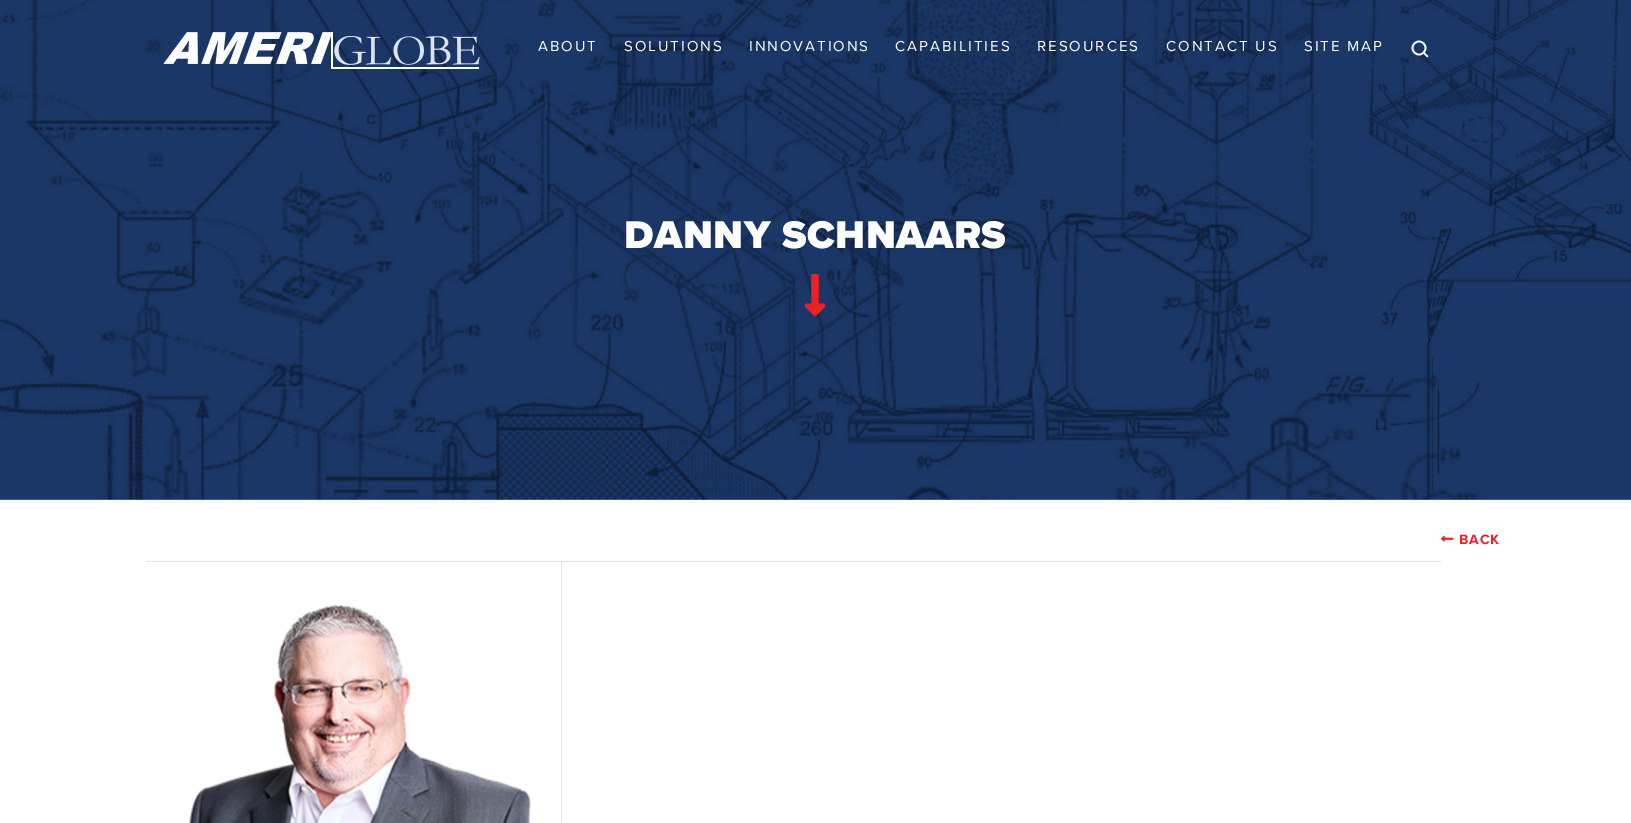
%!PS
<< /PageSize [1631 823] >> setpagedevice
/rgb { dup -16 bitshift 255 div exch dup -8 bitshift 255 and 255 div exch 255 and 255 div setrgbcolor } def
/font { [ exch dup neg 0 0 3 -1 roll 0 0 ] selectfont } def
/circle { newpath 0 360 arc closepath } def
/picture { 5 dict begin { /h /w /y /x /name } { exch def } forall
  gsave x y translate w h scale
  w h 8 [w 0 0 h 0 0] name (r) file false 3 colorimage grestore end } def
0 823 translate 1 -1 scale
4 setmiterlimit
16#FFFFFF rgb
0 0 1631 823 rectfill
(pic2.raw) 0 0 1631 500 picture
(pic1.raw) 163 32 317 37 picture
/ProximaNova-Regular 15 font
538 51 moveto 2 0 (ABOUT) ashow
624 51 moveto 2 0 (SOLUTIONS) ashow
749 51 moveto 2 0 (INNOVATIONS) ashow
895 51 moveto 2 0 (CAPABILITIES) ashow
1037 51 moveto 2 0 (RESOURCES) ashow
1166 51 moveto 2 0 (CONTACT US) ashow
1304 51 moveto 2 0 (SITE MAP) ashow
1.7 setlinewidth
1419 48 6.5 circle stroke
1 setlinecap
1 setlinejoin
1427.5 56.5 moveto 1424 53 lineto stroke
/ProximaNova-Black 40 font
624 248 moveto 0.5 0 (DANNY SCHNAARS) ashow
(pic3.raw) 804 274 22 42 picture
(pic4.raw) 1441 535 13 7 picture
/ProximaNova-Bold 14 font
16#EC2027 rgb
1459 544 moveto 1 0 (BACK) ashow
16#DAE3F0 rgb
146 561 1295 1 rectfill
561 562 1 261 rectfill
(pic5.raw) 189 604 342 219 picture
showpage
